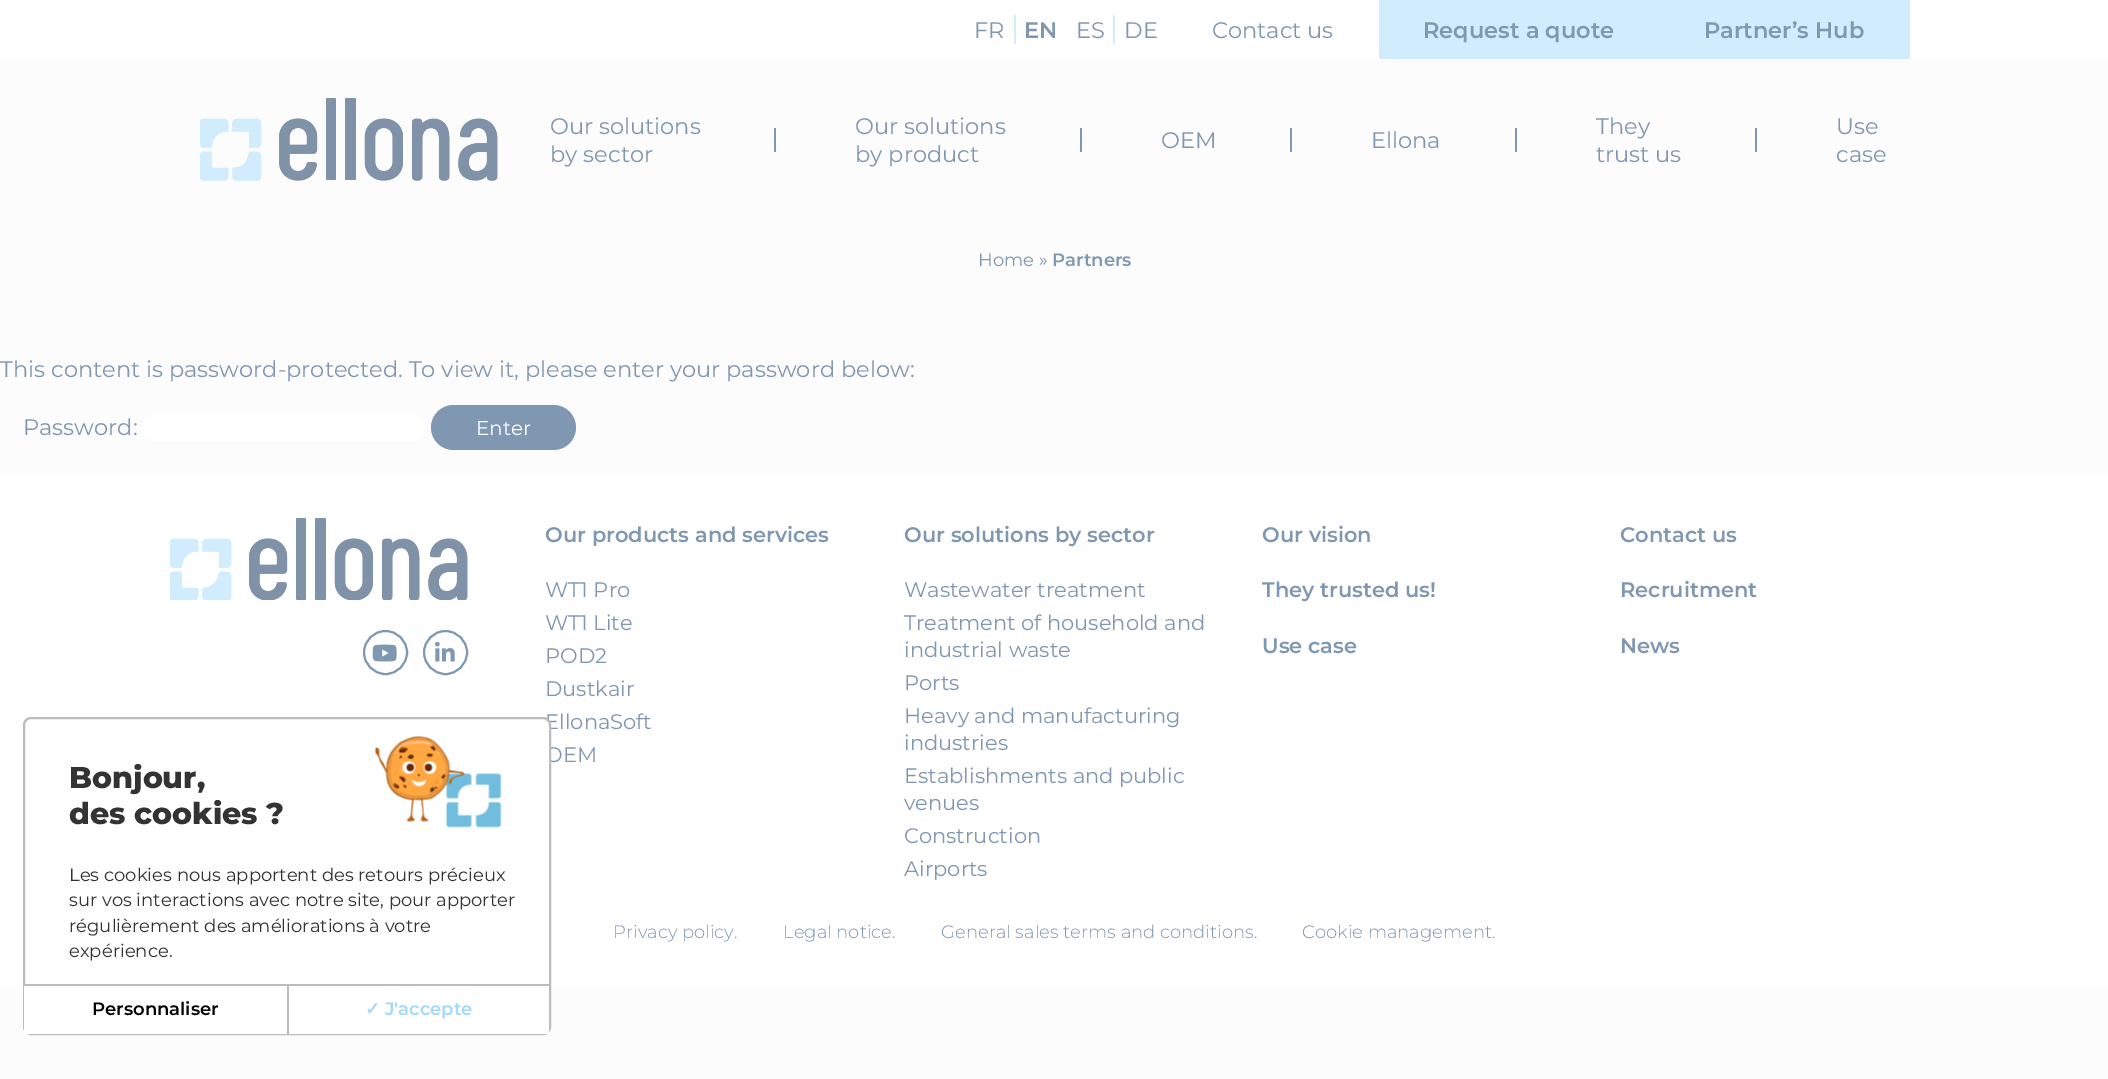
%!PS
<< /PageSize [2108 1079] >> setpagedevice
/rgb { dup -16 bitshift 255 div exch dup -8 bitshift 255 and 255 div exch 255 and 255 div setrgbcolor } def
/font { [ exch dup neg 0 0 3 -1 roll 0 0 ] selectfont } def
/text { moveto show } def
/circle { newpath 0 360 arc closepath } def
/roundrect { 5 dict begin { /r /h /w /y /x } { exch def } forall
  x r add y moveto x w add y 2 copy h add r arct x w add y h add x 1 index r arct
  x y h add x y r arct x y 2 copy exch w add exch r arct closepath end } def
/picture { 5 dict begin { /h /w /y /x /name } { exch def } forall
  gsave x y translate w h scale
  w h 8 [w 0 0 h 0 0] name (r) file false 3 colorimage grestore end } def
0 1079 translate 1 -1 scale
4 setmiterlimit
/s1 { /Montserrat-Regular 22.5 font 16#8097B1 rgb } def
/s2 { /Montserrat-SemiBold 22.5 font 16#8097B1 rgb } def
/s3 { /Montserrat-Regular 18 font 16#8097B1 rgb } def
/s4 { /Montserrat-SemiBold 18 font 16#8097B1 rgb } def
/s5 { /Montserrat-Regular 20 font 16#FFFFFF rgb } def
/s6 { /Montserrat-Regular 21 font 16#8097B1 rgb } def
/s7 { /Montserrat-ExtraBold 30 font 16#333333 rgb } def
/s8 { /Montserrat-Regular 18 font 16#333333 rgb } def
/s9 { /Montserrat-SemiBold 18 font 16#000000 rgb } def
/s10 { /DejaVuSans-Bold 18 font 16#A3D9F8 rgb } def
/s11 { /Montserrat-SemiBold 18 font 16#A3D9F8 rgb } def
/s12 { /Montserrat-SemiBold 21 font 16#8097B1 rgb } def
/s13 { /Montserrat-Light 18 font 16#8097B1 rgb } def
16#FCFCFC rgb
0 0 2108 1079 rectfill
16#FFFFFF rgb
0 0 2108 59 rectfill
16#D1ECFC rgb
1014 15 2 29 rectfill
s1
(FR) 974 38 text
s2
(EN) 1024 38 text
s1
(ES) 1076 38 text
16#D1ECFC rgb
1113 15 2 29 rectfill
s1
(DE) 1124 38 text
(Contact us) 1212 38 text
16#D1ECFC rgb
1379 0 531 59 rectfill
s2
(Request a quote) 1423 38 text
(Partner’s Hub) 1704 38 text
(pic1.raw) 200 98 298 83 picture
s1
(Our solutions) 550 134 text
774 128 2 24 rectfill
(by sector) 550 162 text
(Our solutions) 855 134 text
1080 128 2 24 rectfill
(by product) 855 162 text
(OEM) 1161 148 text
1290 128 2 24 rectfill
(Ellona) 1371 148 text
1515 128 2 24 rectfill
(They) 1596 134 text
1755 128 2 24 rectfill
(trust us) 1596 162 text
(Use) 1836 134 text
(case) 1836 162 text
s3
(Home ») 978 266 text
s4
(Partners) 1052 266 text
s1
(This content is password-protected. To view it, please enter your password below:) 0 377 text
(Password:) 23 435 text
16#FFFFFF rgb
143 414 282 27 13.5 roundrect fill
16#8097B1 rgb
431 405 145 45 22.5 roundrect fill
s5
(Enter) 476 435 text
0 473 2108 516 rectfill
s6
(EllonaSoft) 545 729 text
(OEM) 545 762 text
16#FFFFFF rgb
24 718 526 316 7 roundrect gsave fill grestore
16#BCBCBC rgb
2 setlinewidth
stroke
(pic2.raw) 375 736 127 92 picture
s7
(Bonjour,) 69 788 text
(des cookies ?) 69 824 text
s8
(Les cookies nous apportent des retours précieux) 69 881 text
(sur vos interactions avec notre site, pour apporter) 69 906 text
(régulièrement des améliorations à votre) 69 932 text
(expérience.) 69 957 text
16#FFFFFF rgb
24 986 263 48 rectfill
s9
(Personnaliser) 92 1015 text
16#FFFFFF rgb
289 1027 260 7 rectfill
16#BCBCBC rgb
24 984 525 2 rectfill
287 984 2 50 rectfill
s10
(✓) 365 1015 text
s11
(J'accepte) 385 1015 text
(pic3.raw) 170 518 298 82 picture
16#8097B1 rgb
385.5 652.5 21.5 circle stroke
(pic4.raw) 372 644 25 18 picture
445.5 652.5 21.5 circle stroke
(pic5.raw) 435 641 20 21 picture
s12
(Our products and services) 545 542 text
s6
(WT1 Pro) 545 597 text
(WT1 Lite) 545 630 text
(POD2) 545 663 text
(Dustkair) 545 696 text
s12
(Our solutions by sector) 904 542 text
s6
(Wastewater treatment) 904 597 text
(Treatment of household and) 904 630 text
(industrial waste) 904 657 text
(Ports) 904 690 text
(Heavy and manufacturing) 904 723 text
(industries) 904 750 text
(Establishments and public) 904 783 text
(venues) 904 810 text
(Construction) 904 843 text
(Airports) 904 876 text
s12
(Our vision) 1262 542 text
(They trusted us!) 1262 597 text
(Use case) 1262 653 text
(Contact us) 1620 542 text
(Recruitment) 1620 597 text
(News) 1620 653 text
s13
(Privacy policy.) 613 938 text
(Legal notice.) 783 938 text
(General sales terms and conditions.) 941 938 text
(Cookie management.) 1302 938 text
showpage
